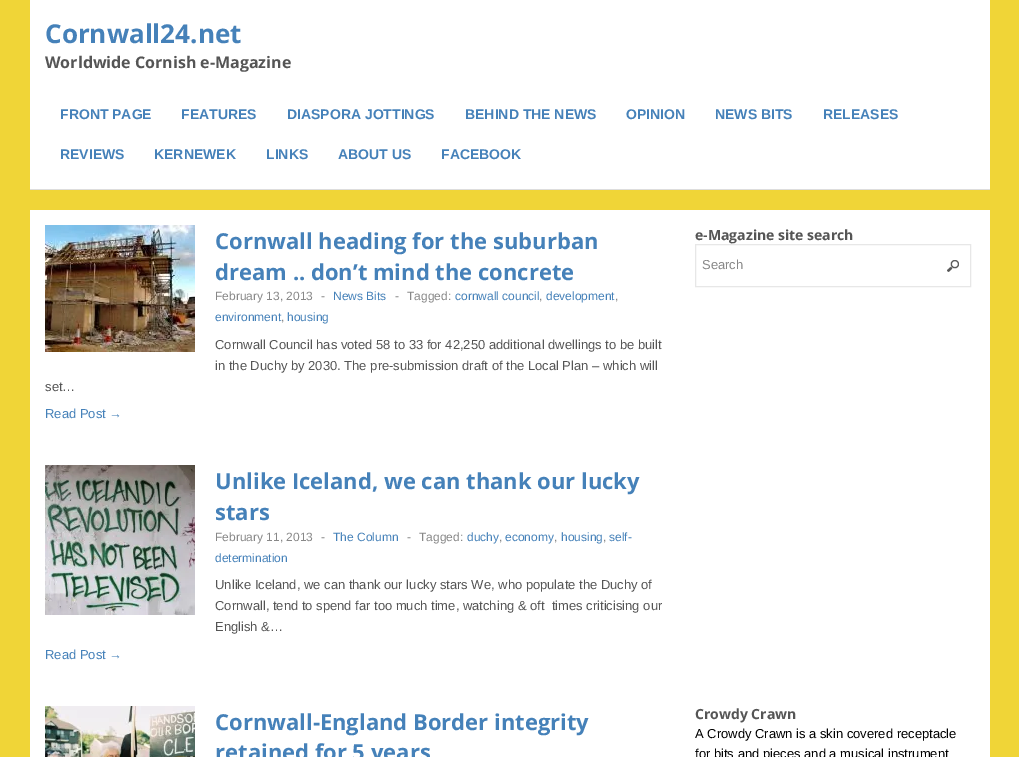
%!PS
<< /PageSize [1019 757] >> setpagedevice
/rgb { dup -16 bitshift 255 div exch dup -8 bitshift 255 and 255 div exch 255 and 255 div setrgbcolor } def
/font { [ exch dup neg 0 0 3 -1 roll 0 0 ] selectfont } def
/text { moveto show } def
/picture { 5 dict begin { /h /w /y /x /name } { exch def } forall
  gsave x y translate w h scale
  w h 8 [w 0 0 h 0 0] name (r) file false 3 colorimage grestore end } def
0 757 translate 1 -1 scale
4 setmiterlimit
/s1 { /OpenSans-Bold 26 font 16#4581B9 rgb } def
/s2 { /OpenSans-Bold 16 font 16#555555 rgb } def
/s3 { /LiberationSans-Bold 14 font 16#4581B9 rgb } def
/s4 { /OpenSans-Bold 22 font 16#4581B9 rgb } def
/s5 { /LiberationSans-Regular 12 font 16#888888 rgb } def
/s6 { /LiberationSans-Regular 12 font 16#4581B9 rgb } def
/s7 { /LiberationSans-Regular 13 font 16#555555 rgb } def
/s8 { /LiberationSans-Regular 13 font 16#4581B9 rgb } def
/s9 { /OpenSans-Bold 14 font 16#555555 rgb } def
/s10 { /LiberationSans-Regular 13 font 16#888888 rgb } def
/s11 { /LiberationSans-Regular 13 font 16#000000 rgb } def
16#F0D537 rgb
0 0 1019 757 rectfill
16#FFFFFF rgb
30 0 960 189 rectfill
16#DDDDDD rgb
30 189 960 1 rectfill
s1
(Cornwall24.net) 45 43 text
s2
(Worldwide Cornish e-Magazine) 45 68 text
s3
(FRONT PAGE) 60 119 text
(FEATURES) 181 119 text
(DIASPORA JOTTINGS) 287 119 text
(BEHIND THE NEWS) 465 119 text
(OPINION) 626 119 text
(NEWS BITS) 715 119 text
(RELEASES) 823 119 text
(REVIEWS) 60 159 text
(KERNEWEK) 154 159 text
(LINKS) 266 159 text
(ABOUT US) 338 159 text
(FACEBOOK) 441 159 text
16#FFFFFF rgb
30 210 960 547 rectfill
(pic1.raw) 45 225 150 127 picture
s4
(Cornwall heading for the suburban) 215 249 text
(dream .. don’t mind the concrete) 215 280 text
s5
(February 13, 2013) 215 300 text
(-) 321 300 text
s6
(News Bits) 333 300 text
s5
(-) 395 300 text
(Tagged:) 407 300 text
s6
(cornwall council) 455 300 text
(development) 546 300 text
s5
(,) 539 300 text
(,) 615 300 text
s6
(environment) 215 321 text
s5
(,) 281 321 text
s6
(housing) 287 321 text
s7
(Cornwall Council has voted 58 to 33 for 42,250 additional dwellings to be built) 215 349 text
(in the Duchy by 2030. The pre-submission draft of the Local Plan – which will) 215 370 text
(set…) 45 391 text
s8
(Read Post →) 45 418 text
(pic2.raw) 45 465 150 150 picture
s4
(Unlike Iceland, we can thank our lucky) 215 489 text
(stars) 215 520 text
s5
(February 11, 2013) 215 541 text
(-) 321 541 text
s6
(The Column) 333 541 text
s5
(-) 407 541 text
(Tagged:) 419 541 text
s6
(duchy) 467 541 text
(economy) 505 541 text
(housing) 561 541 text
(self-) 609 541 text
s5
(,) 499 541 text
(,) 554 541 text
(,) 603 541 text
s6
(determination) 215 562 text
s7
(Unlike Iceland, we can thank our lucky stars We, who populate the Duchy of) 215 589 text
(Cornwall, tend to spend far too much time, watching & oft  times criticising our) 215 610 text
(English &…) 215 631 text
s8
(Read Post →) 45 659 text
(pic3.raw) 45 706 150 51 picture
s4
(Cornwall-England Border integrity) 215 730 text
(retained for 5 years) 215 760 text
s9
(e-Magazine site search) 695 240 text
(pic4.raw) 947 260 12 12 picture
16#E7E7E7 rgb
695.5 244.5 275 42 rectstroke
s10
(Search) 702 269 text
s9
(Crowdy Crawn) 695 719 text
s11
(A Crowdy Crawn is a skin covered receptacle) 695 738 text
(for bits and pieces and a musical instrument) 695 758 text
showpage
